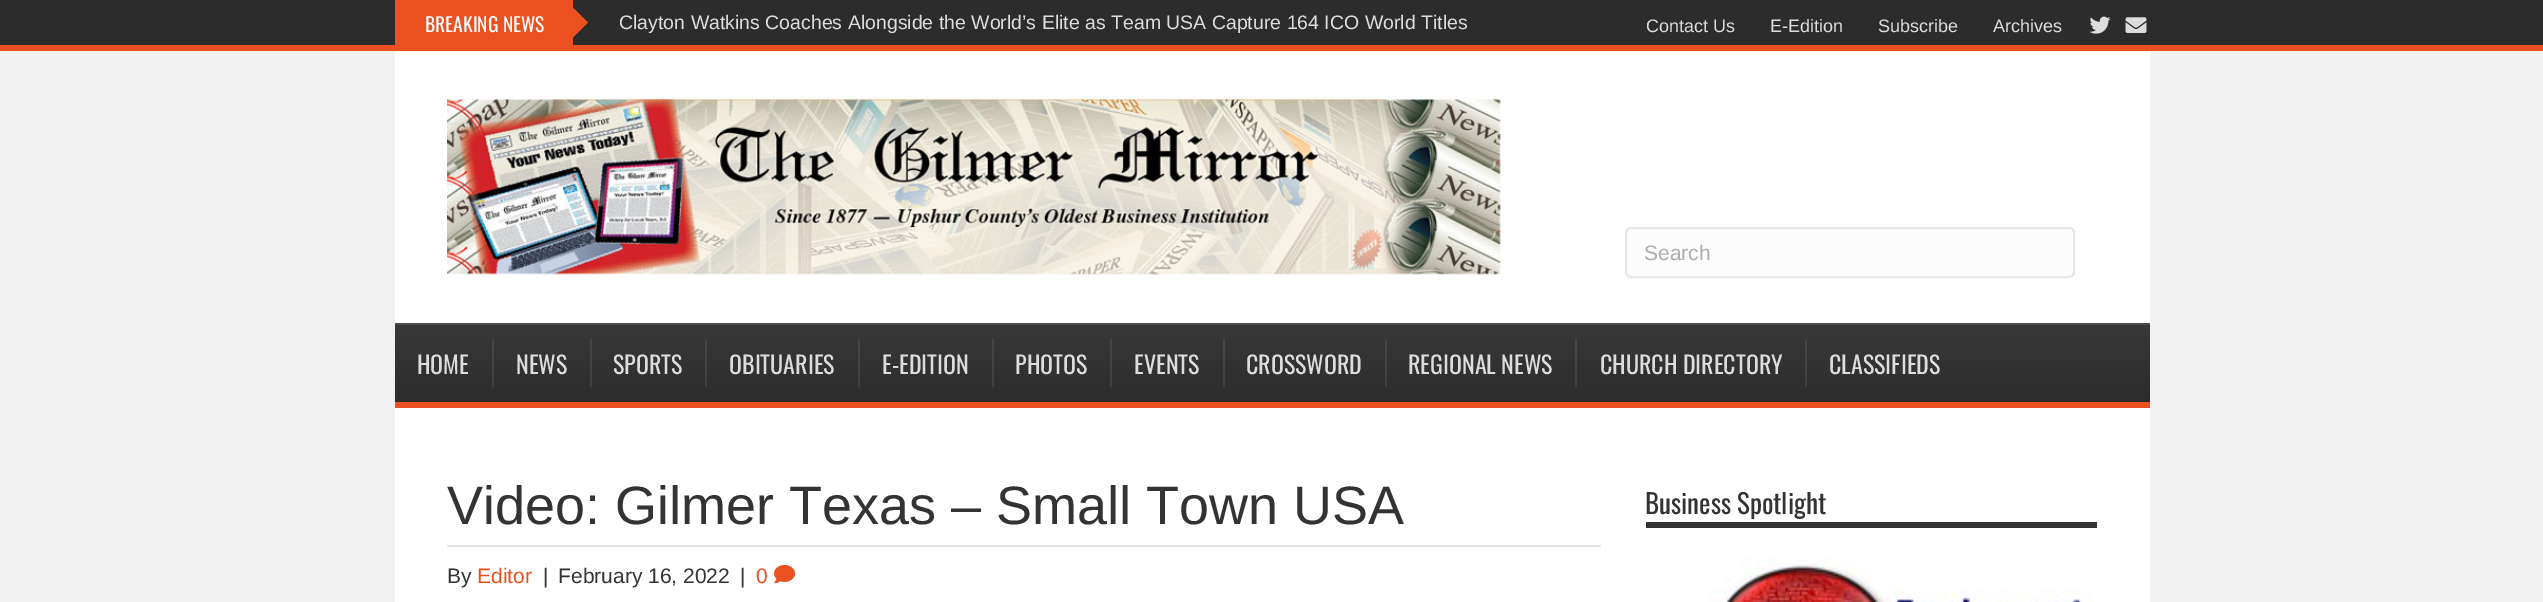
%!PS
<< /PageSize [2543 602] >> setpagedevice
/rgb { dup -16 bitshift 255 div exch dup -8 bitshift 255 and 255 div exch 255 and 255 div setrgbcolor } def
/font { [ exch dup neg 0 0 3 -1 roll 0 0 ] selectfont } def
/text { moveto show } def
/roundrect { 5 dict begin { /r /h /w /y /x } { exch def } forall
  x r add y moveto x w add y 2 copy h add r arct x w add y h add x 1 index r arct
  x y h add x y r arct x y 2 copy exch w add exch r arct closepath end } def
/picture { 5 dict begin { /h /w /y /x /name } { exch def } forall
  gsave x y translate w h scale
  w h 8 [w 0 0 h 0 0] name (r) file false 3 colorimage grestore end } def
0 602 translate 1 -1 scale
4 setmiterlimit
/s1 { /Oswald-Regular 19.5 font 16#FFFFFF rgb } def
/s2 { /LiberationSans-Regular 19.5 font 16#DDDDDD rgb } def
/s3 { /LiberationSans-Regular 18 font 16#DDDDDD rgb } def
/s4 { /LiberationSans-Regular 21 font 16#ACACAC rgb } def
/s5 { /Oswald-Regular 24 font 16#DDDDDD rgb } def
/s6 { /LiberationSans-Regular 54 font 16#333333 rgb } def
/s7 { /LiberationSans-Regular 21 font 16#333333 rgb } def
/s8 { /LiberationSans-Regular 21 font 16#EA5020 rgb } def
/s9 { /Oswald-Regular 27 font 16#333333 rgb } def
16#F2F2F2 rgb
0 0 2543 602 rectfill
16#2C2C2C rgb
0 0 2543 45 rectfill
16#EA5020 rgb
0 45 2543 6 rectfill
395 0 178 45 rectfill
s1
(BREAKING NEWS) 425 32 text
16#EA5020 rgb
573 37.5 moveto 573 7.5 lineto 588 22.5 lineto closepath fill
s2
(Clayton Watkins Coaches Alongside the World’s Elite as Team USA Capture 164 ICO World Titles) 619 29 text
s3
(Contact Us) 1646 32 text
(E-Edition) 1770 32 text
(Subscribe) 1878 32 text
(Archives) 1993 32 text
(pic1.raw) 2089 16 22 18 picture
(pic2.raw) 2125 17 22 16 picture
16#FFFFFF rgb
395 51 1755 272 rectfill
(pic3.raw) 447 96 1055 179 picture
16#FCFCFC rgb
1626 228 448 49 5 roundrect gsave fill grestore
16#E6E6E6 rgb
2 setlinewidth
stroke
s4
(Search) 1644 260 text
gsave 395 325 moveto 2150 325 lineto 2150 402 lineto 395 402 lineto closepath clip newpath
<< /ShadingType 2 /ColorSpace /DeviceRGB /Coords [1272 324 1272 402] /Extend [true true] /Function << /FunctionType 2 /Domain [0 1] /C0 [0.224 0.224 0.224] /C1 [0.173 0.173 0.173] /N 1 >> >> shfill grestore
gsave 1805 339 moveto 1807 339 lineto 1807 387 lineto 1805 387 lineto closepath clip newpath
<< /ShadingType 2 /ColorSpace /DeviceRGB /Coords [1272 324 1272 402] /Extend [true true] /Function << /FunctionType 2 /Domain [0 1] /C0 [0.286 0.286 0.286] /C1 [0.243 0.243 0.243] /N 1 >> >> shfill grestore
gsave 1575 339 moveto 1577 339 lineto 1577 387 lineto 1575 387 lineto closepath clip newpath
<< /ShadingType 2 /ColorSpace /DeviceRGB /Coords [1272 324 1272 402] /Extend [true true] /Function << /FunctionType 2 /Domain [0 1] /C0 [0.286 0.286 0.286] /C1 [0.243 0.243 0.243] /N 1 >> >> shfill grestore
gsave 1385 339 moveto 1387 339 lineto 1387 387 lineto 1385 387 lineto closepath clip newpath
<< /ShadingType 2 /ColorSpace /DeviceRGB /Coords [1272 324 1272 402] /Extend [true true] /Function << /FunctionType 2 /Domain [0 1] /C0 [0.286 0.286 0.286] /C1 [0.243 0.243 0.243] /N 1 >> >> shfill grestore
gsave 1223 339 moveto 1225 339 lineto 1225 387 lineto 1223 387 lineto closepath clip newpath
<< /ShadingType 2 /ColorSpace /DeviceRGB /Coords [1272 324 1272 402] /Extend [true true] /Function << /FunctionType 2 /Domain [0 1] /C0 [0.286 0.286 0.286] /C1 [0.243 0.243 0.243] /N 1 >> >> shfill grestore
gsave 1110 339 moveto 1112 339 lineto 1112 387 lineto 1110 387 lineto closepath clip newpath
<< /ShadingType 2 /ColorSpace /DeviceRGB /Coords [1272 324 1272 402] /Extend [true true] /Function << /FunctionType 2 /Domain [0 1] /C0 [0.286 0.286 0.286] /C1 [0.243 0.243 0.243] /N 1 >> >> shfill grestore
gsave 992 339 moveto 994 339 lineto 994 387 lineto 992 387 lineto closepath clip newpath
<< /ShadingType 2 /ColorSpace /DeviceRGB /Coords [1272 324 1272 402] /Extend [true true] /Function << /FunctionType 2 /Domain [0 1] /C0 [0.286 0.286 0.286] /C1 [0.243 0.243 0.243] /N 1 >> >> shfill grestore
gsave 858 339 moveto 860 339 lineto 860 387 lineto 858 387 lineto closepath clip newpath
<< /ShadingType 2 /ColorSpace /DeviceRGB /Coords [1272 324 1272 402] /Extend [true true] /Function << /FunctionType 2 /Domain [0 1] /C0 [0.286 0.286 0.286] /C1 [0.243 0.243 0.243] /N 1 >> >> shfill grestore
gsave 705 339 moveto 707 339 lineto 707 387 lineto 705 387 lineto closepath clip newpath
<< /ShadingType 2 /ColorSpace /DeviceRGB /Coords [1272 324 1272 402] /Extend [true true] /Function << /FunctionType 2 /Domain [0 1] /C0 [0.286 0.286 0.286] /C1 [0.243 0.243 0.243] /N 1 >> >> shfill grestore
gsave 590 339 moveto 592 339 lineto 592 387 lineto 590 387 lineto closepath clip newpath
<< /ShadingType 2 /ColorSpace /DeviceRGB /Coords [1272 324 1272 402] /Extend [true true] /Function << /FunctionType 2 /Domain [0 1] /C0 [0.286 0.286 0.286] /C1 [0.243 0.243 0.243] /N 1 >> >> shfill grestore
gsave 492 339 moveto 494 339 lineto 494 387 lineto 492 387 lineto closepath clip newpath
<< /ShadingType 2 /ColorSpace /DeviceRGB /Coords [1272 324 1272 402] /Extend [true true] /Function << /FunctionType 2 /Domain [0 1] /C0 [0.286 0.286 0.286] /C1 [0.243 0.243 0.243] /N 1 >> >> shfill grestore
16#4D4D4D rgb
395 323 1755 2 rectfill
16#EA5020 rgb
395 402 1755 6 rectfill
s5
(HOME) 417 374 text
(NEWS) 516 374 text
(SPORTS) 613 374 text
(OBITUARIES) 729 374 text
(E-EDITION) 882 374 text
(PHOTOS) 1015 374 text
(EVENTS) 1134 374 text
(CROSSWORD) 1246 374 text
(REGIONAL NEWS) 1408 374 text
(CHURCH DIRECTORY) 1600 374 text
(CLASSIFIEDS) 1829 374 text
16#FFFFFF rgb
395 408 1755 194 rectfill
16#E6E6E6 rgb
447 545 1154 2 rectfill
s6
(Video: Gilmer Texas – Small Town USA) 447 524 text
s7
(By) 447 583 text
s8
(Editor) 477 583 text
s7
(|) 543 583 text
(February 16, 2022) 558 583 text
(|) 740 583 text
s8
(0) 756 583 text
(pic4.raw) 774 564 21 20 picture
16#333333 rgb
1646 522 451 6 rectfill
s9
(Business Spotlight) 1645 514 text
(pic5.raw) 1709 558 385 44 picture
showpage
